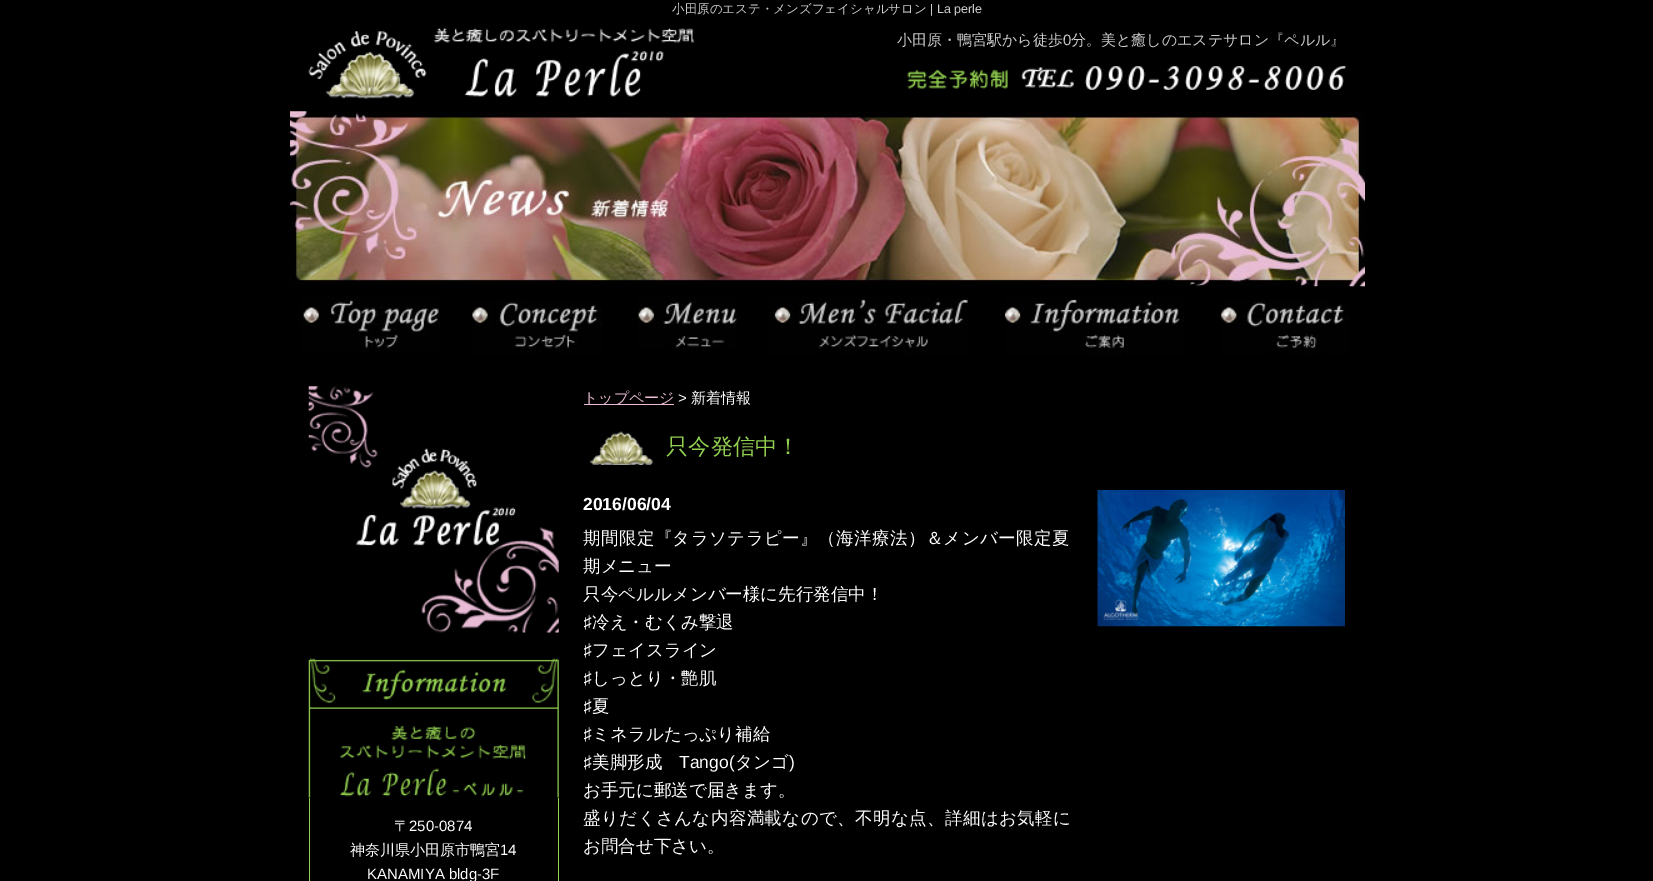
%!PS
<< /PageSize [1653 881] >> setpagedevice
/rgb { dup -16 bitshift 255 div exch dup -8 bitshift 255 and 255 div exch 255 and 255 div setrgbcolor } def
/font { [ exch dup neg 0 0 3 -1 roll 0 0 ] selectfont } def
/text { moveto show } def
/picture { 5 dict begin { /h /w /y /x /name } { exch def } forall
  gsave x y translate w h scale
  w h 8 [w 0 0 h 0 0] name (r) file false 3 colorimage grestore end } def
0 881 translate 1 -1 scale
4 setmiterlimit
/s1 { /WenQuanYiZenHei-Medium 12.5 font 16#CCCCCC rgb } def
/s2 { /LiberationSans-Regular 12.5 font 16#CCCCCC rgb } def
/s3 { /WenQuanYiZenHei-Medium 15 font 16#CCCCCC rgb } def
/s4 { /LiberationSans-Regular 15 font 16#CCCCCC rgb } def
/s5 { /WenQuanYiZenHei-Medium 15 font 16#FFFFFF rgb } def
/s6 { /LiberationSans-Regular 15 font 16#FFFFFF rgb } def
/s7 { /WenQuanYiZenHei-Medium 15 font 16#E9BBD4 rgb } def
/s8 { /WenQuanYiZenHei-Medium 22.25 font 16#92D050 rgb } def
/s9 { /LiberationSans-Bold 17.5 font 16#FFFFFF rgb } def
/s10 { /WenQuanYiZenHei-Medium 17.5 font 16#FFFFFF rgb } def
/s11 { /LiberationSans-Regular 17.5 font 16#FFFFFF rgb } def
16#000000 rgb
0 0 1653 881 rectfill
s1
(小田原のエステ・メンズフェイシャルサロン) 672 13 text
s2
(| La perle) 930 13 text
(pic1.raw) 308 27 386 72 picture
s3
(小田原・鴨宮駅から徒歩) 897 45 text
s4
(0) 1063 45 text
s3
(分。美と癒しのエステサロン『ペルル』) 1071 45 text
(pic2.raw) 907 66 440 24 picture
(pic3.raw) 290 111 1075 176 picture
(pic4.raw) 300 296 140 57 picture
(pic5.raw) 472 300 130 55 picture
(pic6.raw) 637 296 100 53 picture
(pic7.raw) 769 297 199 59 picture
(pic8.raw) 1004 296 180 60 picture
(pic9.raw) 1220 299 130 56 picture
(pic10.raw) 308 386 251 247 picture
(pic11.raw) 308 658 251 140 picture
16#92D050 rgb
558 798 1 83 rectfill
309 798 1 83 rectfill
s5
(〒) 394 831 text
s6
(250-0874) 409 831 text
s5
(神奈川県小田原市鴨宮) 350 855 text
s6
(14) 500 855 text
(KANAMIYA bldg-3F) 367 879 text
16#E9BBD4 rgb
584 404 90 1 rectfill
s7
(トップページ) 583 403 text
s6
(>) 678 403 text
s5
(新着情報) 691 403 text
(pic12.raw) 590 431 63 34 picture
s8
(只今発信中！) 666 454 text
s9
(2016/06/04) 583 510 text
/WenQuanYiZenHei-Medium 17.5 font
583 544 moveto 0.4 0 (期間限定『タラソテラピー』（海洋療法）＆メンバー限定夏) ashow
(期メニュー) 583 572 text
(只今ペルルメンバー様に先行発信中！) 583 600 text
gsave
584 490 762 370 rectclip
s11
(♯) 583 628 text
grestore
(冷え・むくみ撃退) 592 628 text
gsave
584 490 762 370 rectclip
s11
(♯) 583 656 text
grestore
(フェイスライン) 592 656 text
gsave
584 490 762 370 rectclip
s11
(♯) 583 684 text
grestore
(しっとり・艶肌) 592 684 text
gsave
584 490 762 370 rectclip
s11
(♯) 583 712 text
grestore
(夏) 592 712 text
gsave
584 490 762 370 rectclip
s11
(♯) 583 740 text
grestore
(ミネラルたっぷり補給) 592 740 text
gsave
584 490 762 370 rectclip
s11
(♯) 583 768 text
grestore
(美脚形成) 592 768 text
s11
(Tango\() 679 768 text
s10
(タンゴ) 735 768 text
s11
(\)) 789 768 text
s10
(お手元に郵送で届きます。) 583 796 text
583 824 moveto 0.4 0 (盛りだくさんな内容満載なので、不明な点、詳細はお気軽に) ashow
(お問合せ下さい。) 583 852 text
(pic13.raw) 1097 490 248 137 picture
showpage
